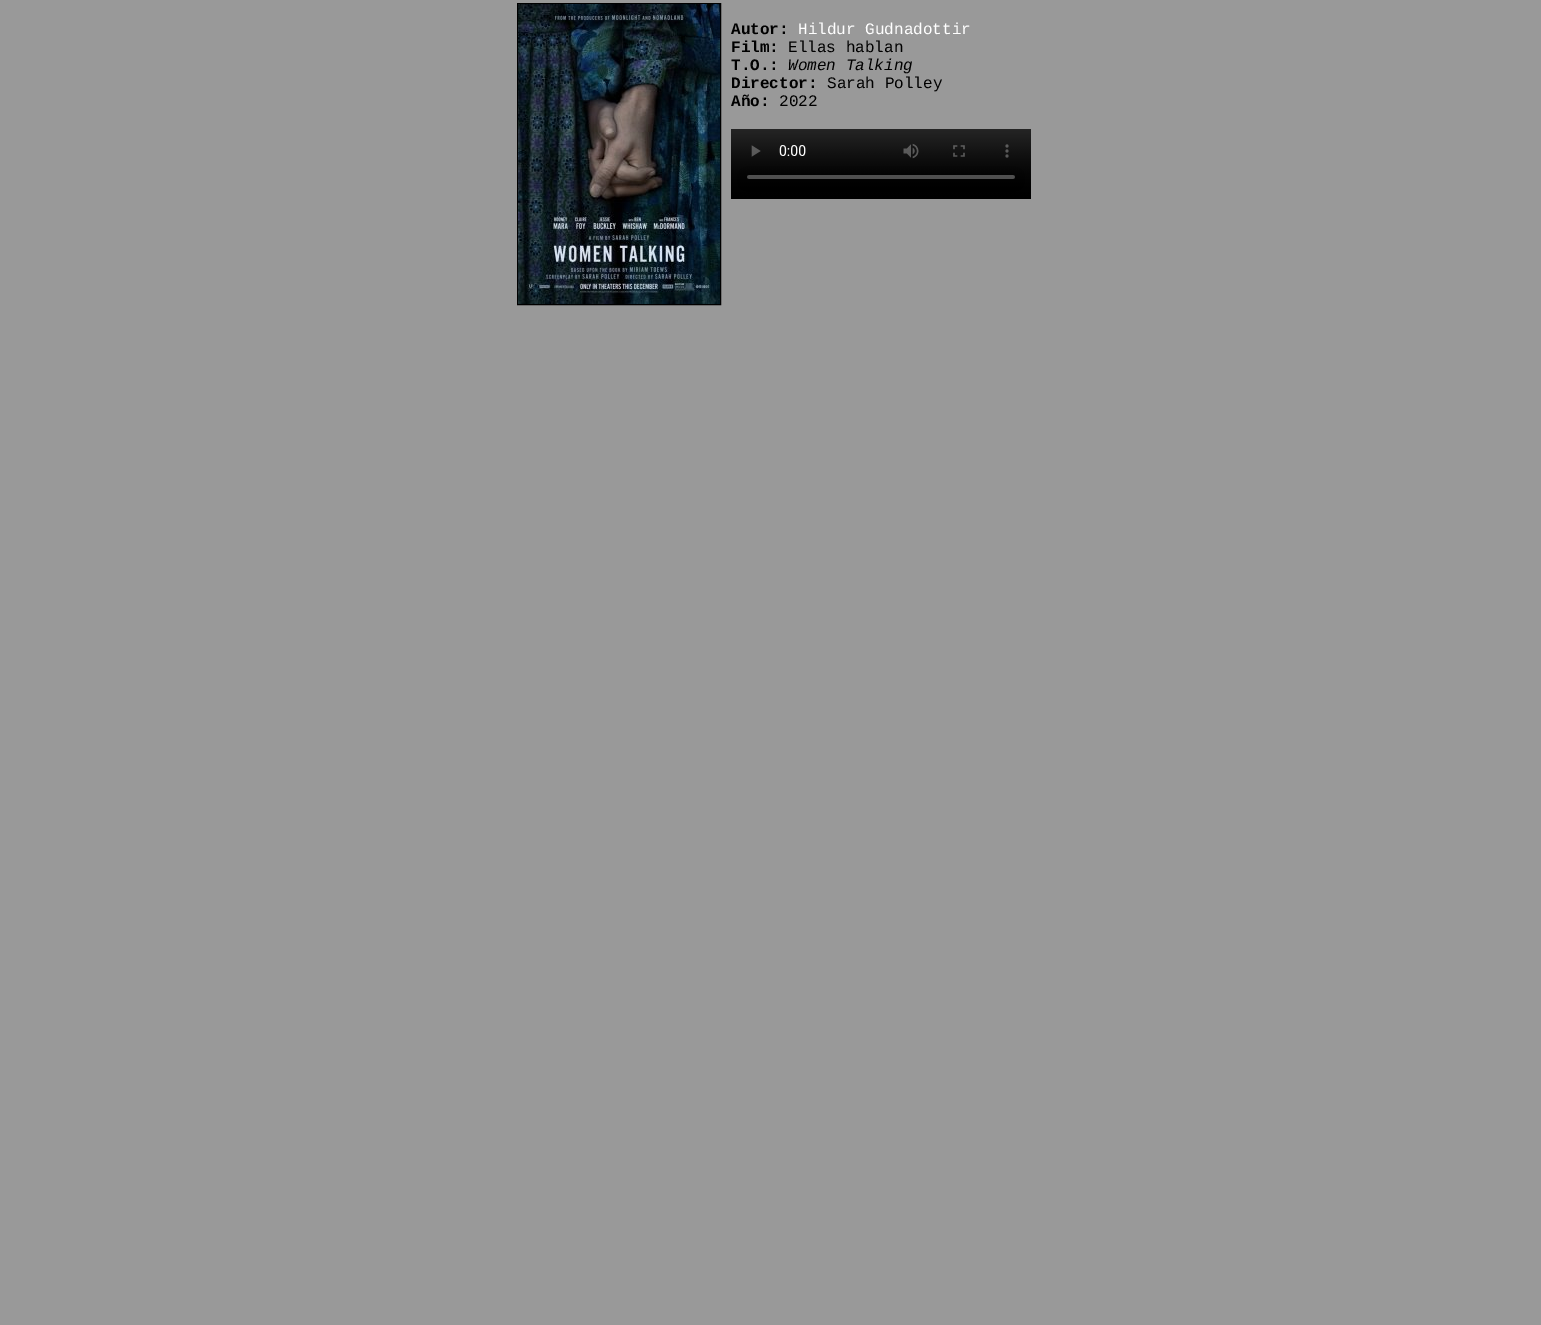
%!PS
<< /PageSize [1541 1325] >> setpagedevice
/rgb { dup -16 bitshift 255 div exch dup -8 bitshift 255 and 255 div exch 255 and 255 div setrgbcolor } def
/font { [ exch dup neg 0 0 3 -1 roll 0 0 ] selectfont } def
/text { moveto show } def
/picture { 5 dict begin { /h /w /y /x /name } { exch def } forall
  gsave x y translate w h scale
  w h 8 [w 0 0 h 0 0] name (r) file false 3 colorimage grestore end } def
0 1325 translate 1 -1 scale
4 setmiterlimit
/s1 { /LiberationMono-Bold 16 font 16#000000 rgb } def
/s2 { /LiberationMono-Regular 16 font 16#FFFFFF rgb } def
/s3 { /LiberationMono-Regular 16 font 16#000000 rgb } def
/s4 { /LiberationMono-Italic 16 font 16#000000 rgb } def
16#999999 rgb
0 0 1541 1325 rectfill
16#000000 rgb
517.5 3.5 203 301 rectstroke
(pic1.raw) 518 4 202 300 picture
s1
(Autor:) 731 34 text
s2
(Hildur Gudnadottir) 798 34 text
s1
(Film:) 731 52 text
s3
(Ellas hablan) 788 52 text
s1
(T.O.:) 731 70 text
s4
(Women Talking) 788 70 text
s1
(Director:) 731 88 text
s3
(Sarah Polley) 827 88 text
s1
(Año:) 731 106 text
s3
(2022) 779 106 text
(pic2.raw) 731 129 300 70 picture
showpage
